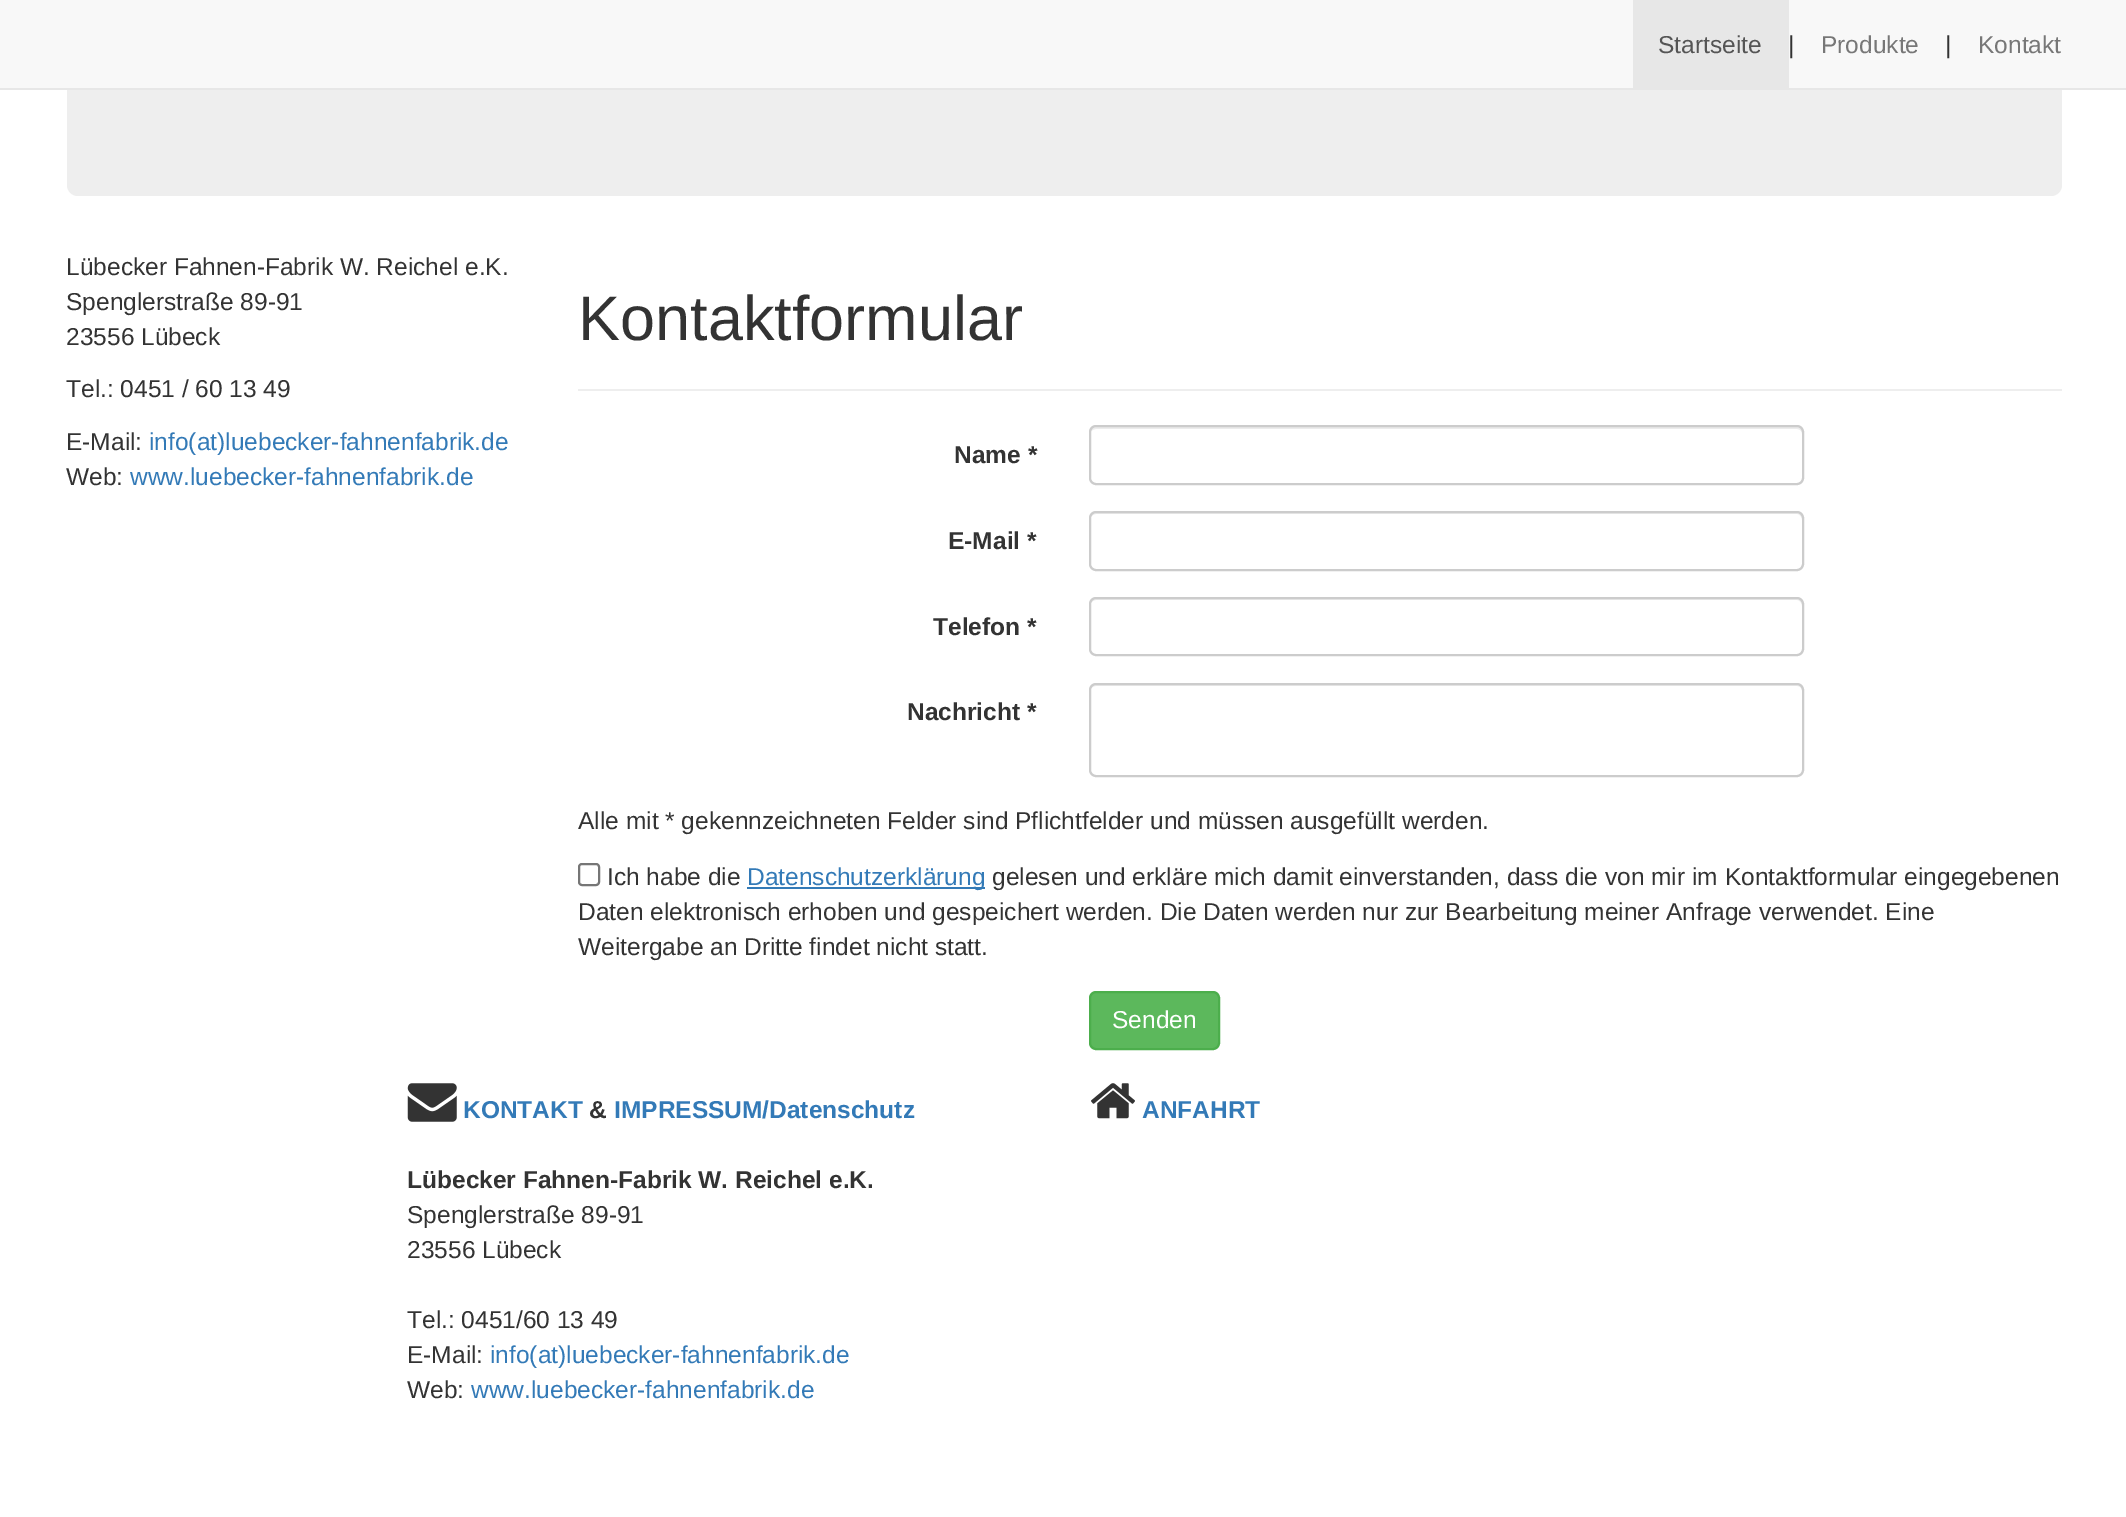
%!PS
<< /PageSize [2126 1517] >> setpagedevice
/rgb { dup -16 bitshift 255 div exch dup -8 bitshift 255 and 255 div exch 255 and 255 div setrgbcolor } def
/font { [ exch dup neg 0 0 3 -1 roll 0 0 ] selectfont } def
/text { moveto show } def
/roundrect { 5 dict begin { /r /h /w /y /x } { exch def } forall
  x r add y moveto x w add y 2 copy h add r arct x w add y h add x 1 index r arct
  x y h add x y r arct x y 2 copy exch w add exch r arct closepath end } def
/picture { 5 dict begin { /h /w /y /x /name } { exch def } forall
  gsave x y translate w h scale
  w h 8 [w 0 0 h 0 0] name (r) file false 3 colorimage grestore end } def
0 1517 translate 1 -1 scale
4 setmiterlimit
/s1 { /LiberationSans-Regular 24.5 font 16#555555 rgb } def
/s2 { /LiberationSans-Regular 24.5 font 16#333333 rgb } def
/s3 { /LiberationSans-Regular 24.5 font 16#777777 rgb } def
/s4 { /LiberationSans-Regular 24.5 font 16#337AB7 rgb } def
/s5 { /LiberationSans-Regular 63 font 16#333333 rgb } def
/s6 { /LiberationSans-Bold 24.5 font 16#333333 rgb } def
/s7 { /LiberationSans-Regular 24.5 font 16#FFFFFF rgb } def
/s8 { /LiberationSans-Bold 24.5 font 16#337AB7 rgb } def
16#FFFFFF rgb
0 0 2126 1517 rectfill
16#EEEEEE rgb
67 0 1995 196 11 roundrect fill
16#F8F8F8 rgb
0 0 2126 88 rectfill
16#E7E7E7 rgb
0 88 2126 2 rectfill
1633 0 156 88 rectfill
s1
(Startseite) 1658 53 text
s2
(|) 1788 53 text
s3
(Produkte) 1821 53 text
s2
(|) 1945 53 text
s3
(Kontakt) 1978 53 text
s2
(Lübecker Fahnen-Fabrik W. Reichel e.K.) 66 275 text
(Spenglerstraße 89-91) 66 310 text
(23556 Lübeck) 66 345 text
(Tel.: 0451 / 60 13 49) 66 397 text
(E-Mail:) 66 450 text
s4
(info\(at\)luebecker-fahnenfabrik.de) 149 450 text
s2
(Web:) 66 485 text
s4
(www.luebecker-fahnenfabrik.de) 130 485 text
s5
(Kontaktformular) 578 340 text
16#EEEEEE rgb
578 389 1484 2 rectfill
s6
(Name *) 954 463 text
16#ECECEC rgb
1096 429 moveto 1797 429 lineto 1800 429 1802 431 1802 434 curveto 1802 481 lineto 1803 480 1803 479 1803 478 curveto 1803 432 lineto 1803 429 1801 427 1798 427 curveto 1095 427 lineto 1092 427 1090 429 1090 432 curveto 1090 434 lineto 1090 431 1093 429 1096 429 curveto closepath fill
16#CCCCCC rgb
2 setlinewidth
1090 426 713 58 6 roundrect stroke
s6
(E-Mail *) 948 549 text
16#ECECEC rgb
1096 514 moveto 1797 514 lineto 1800 514 1802 517 1802 520 curveto 1802 565 lineto 1801 568 lineto 1802 567 1803 565 1803 564 curveto 1803 518 lineto 1803 515 1801 513 1798 513 curveto 1095 513 lineto 1092 513 1090 515 1090 518 curveto 1090 520 lineto 1090 517 1093 514 1096 514 curveto closepath fill
16#CCCCCC rgb
1090 512 713 58 6 roundrect stroke
s6
(Telefon *) 933 635 text
16#ECECEC rgb
1096 600 moveto 1797 600 lineto 1800 600 1802 603 1802 606 curveto 1802 651 lineto 1801 654 lineto 1802 653 1803 651 1803 650 curveto 1803 604 lineto 1803 601 1801 599 1798 599 curveto 1095 599 lineto 1092 599 1090 601 1090 604 curveto 1090 606 lineto 1090 603 1093 600 1096 600 curveto closepath fill
16#CCCCCC rgb
1090 598 713 57 6 roundrect stroke
s6
(Nachricht *) 907 720 text
16#ECECEC rgb
1096 686 moveto 1797 686 lineto 1800 686 1802 688 1802 691 curveto 1802 773 lineto 1803 772 1803 771 1803 770 curveto 1803 689 lineto 1803 686 1801 684 1798 684 curveto 1095 684 lineto 1092 684 1090 686 1090 689 curveto 1090 691 lineto 1090 688 1093 686 1096 686 curveto closepath fill
16#CCCCCC rgb
1090 684 713 92 6 roundrect stroke
s2
(Alle mit * gekennzeichneten Felder sind Pflichtfelder und müssen ausgefüllt werden.) 578 829 text
16#767676 rgb
579 864 20 21 3 roundrect stroke
s2
(Ich habe die) 607 885 text
16#337AB7 rgb
747 887 238 2 rectfill
(Datenschutzerklärung) 747 885 text
s2
(gelesen und erkläre mich damit einverstanden, dass die von mir im Kontaktformular eingegebenen) 992 885 text
(Daten elektronisch erhoben und gespeichert werden. Die Daten werden nur zur Bearbeitung meiner Anfrage verwendet. Eine) 578 920 text
(Weitergabe an Dritte findet nicht statt.) 578 955 text
16#5CB85C rgb
1090 992 129 57 6 roundrect gsave fill grestore
16#4CAE4C rgb
stroke
s7
(Senden) 1112 1028 text
(pic1.raw) 407 1083 50 39 picture
s8
(KONTAKT) 463 1118 text
s6
(&) 589 1118 text
s8
(IMPRESSUM/Datenschutz) 614 1118 text
s6
(Lübecker Fahnen-Fabrik W. Reichel e.K.) 407 1188 text
s2
(Spenglerstraße 89-91) 407 1223 text
(23556 Lübeck) 407 1258 text
(Tel.: 0451/60 13 49) 407 1328 text
(E-Mail:) 407 1363 text
s4
(info\(at\)luebecker-fahnenfabrik.de) 490 1363 text
s2
(Web:) 407 1398 text
s4
(www.luebecker-fahnenfabrik.de) 471 1398 text
(pic2.raw) 1091 1083 44 36 picture
s8
(ANFAHRT) 1142 1118 text
showpage
